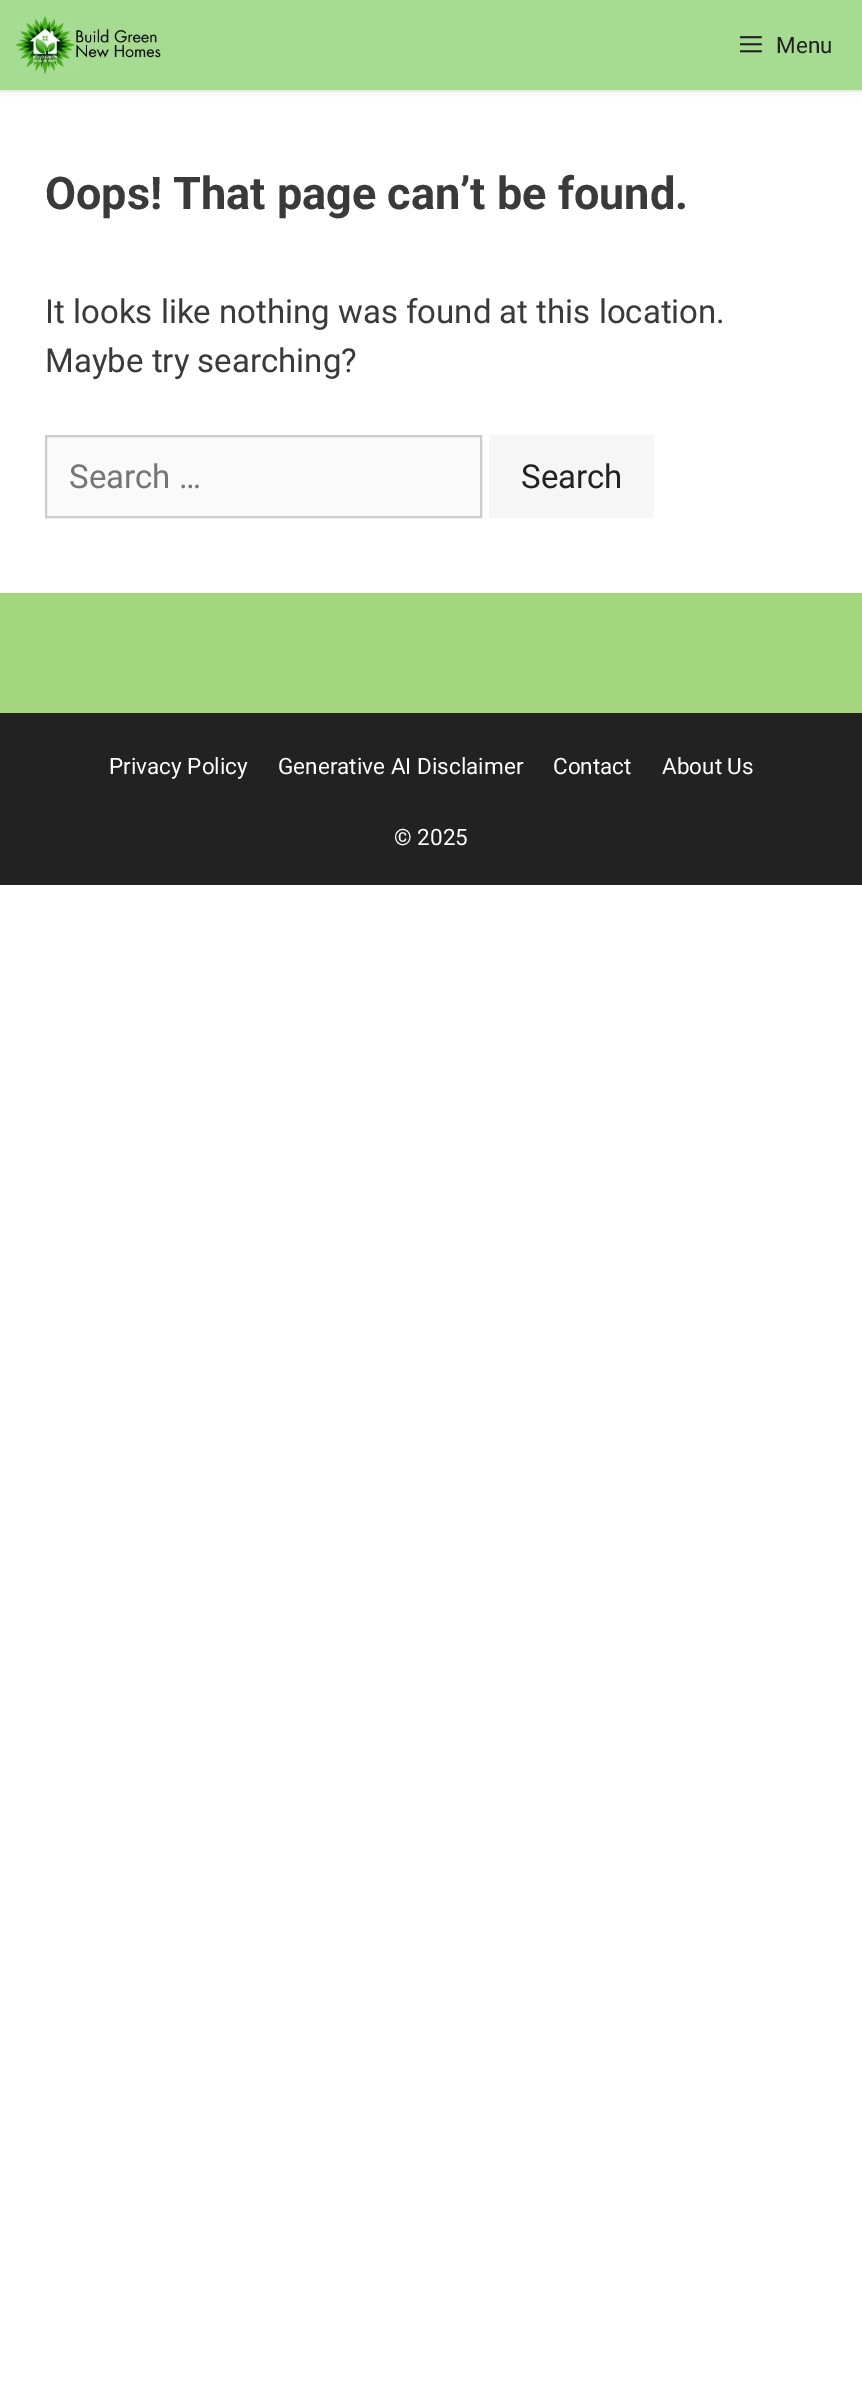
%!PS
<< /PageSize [862 2390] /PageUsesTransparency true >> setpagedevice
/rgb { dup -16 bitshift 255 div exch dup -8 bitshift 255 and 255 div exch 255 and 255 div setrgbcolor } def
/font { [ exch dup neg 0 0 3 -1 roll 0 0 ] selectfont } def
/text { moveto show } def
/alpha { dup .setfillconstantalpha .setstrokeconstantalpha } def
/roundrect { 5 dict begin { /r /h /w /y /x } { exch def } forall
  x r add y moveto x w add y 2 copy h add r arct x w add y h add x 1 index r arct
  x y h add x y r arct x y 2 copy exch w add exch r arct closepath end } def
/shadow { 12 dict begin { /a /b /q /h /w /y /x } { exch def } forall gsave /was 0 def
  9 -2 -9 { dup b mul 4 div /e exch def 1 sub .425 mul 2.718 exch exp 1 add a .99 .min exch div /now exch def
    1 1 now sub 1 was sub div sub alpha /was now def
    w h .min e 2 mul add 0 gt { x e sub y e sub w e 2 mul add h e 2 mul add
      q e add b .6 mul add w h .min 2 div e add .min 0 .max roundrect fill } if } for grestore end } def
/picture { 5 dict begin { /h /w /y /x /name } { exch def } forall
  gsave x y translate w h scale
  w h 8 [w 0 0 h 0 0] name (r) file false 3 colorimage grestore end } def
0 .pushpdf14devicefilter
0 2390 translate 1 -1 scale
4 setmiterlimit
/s1 { /Roboto-Regular 22.5 font 16#222222 rgb } def
/s2 { /Roboto-Bold 45 font 16#3A3A3A rgb } def
/s3 { /Roboto-Regular 33 font 16#3A3A3A rgb } def
/s4 { /Roboto-Regular 33 font 16#757575 rgb } def
/s5 { /Roboto-Regular 33 font 16#222222 rgb } def
/s6 { /Roboto-Regular 22.5 font 16#FFFFFF rgb } def
16#FFFFFF rgb
0 0 862 2390 rectfill
16#000000 rgb
2 5 859 88 0 7 0.04 shadow
16#A5DC92 rgb
0 0 862 90 rectfill
16#EBEBEB rgb
0 90 862 2 rectfill
(pic1.raw) 15 15 146 59 picture
(pic2.raw) 740 36 22 17 picture
s1
(Menu) 776 53 text
s2
(Oops! That page can’t be found.) 45 209 text
s3
(It looks like nothing was found at this location.) 45 323 text
(Maybe try searching?) 45 372 text
16#FAFAFA rgb
46 436 moveto 481 436 lineto 481 517 lineto 46 517 lineto closepath gsave fill grestore
16#CCCCCC rgb
2 setlinewidth
stroke
s4
(Search …) 69 488 text
16#F6F6F6 rgb
489 435 165 83 rectfill
s5
(Search) 521 488 text
16#A4D680 rgb
0 593 862 120 rectfill
16#222222 rgb
0 713 862 172 rectfill
s6
(Privacy Policy) 109 774 text
(Generative AI Disclaimer) 278 774 text
(Contact) 553 774 text
(About Us) 662 774 text
(© 2025) 394 845 text
.poppdf14devicefilter showpage
